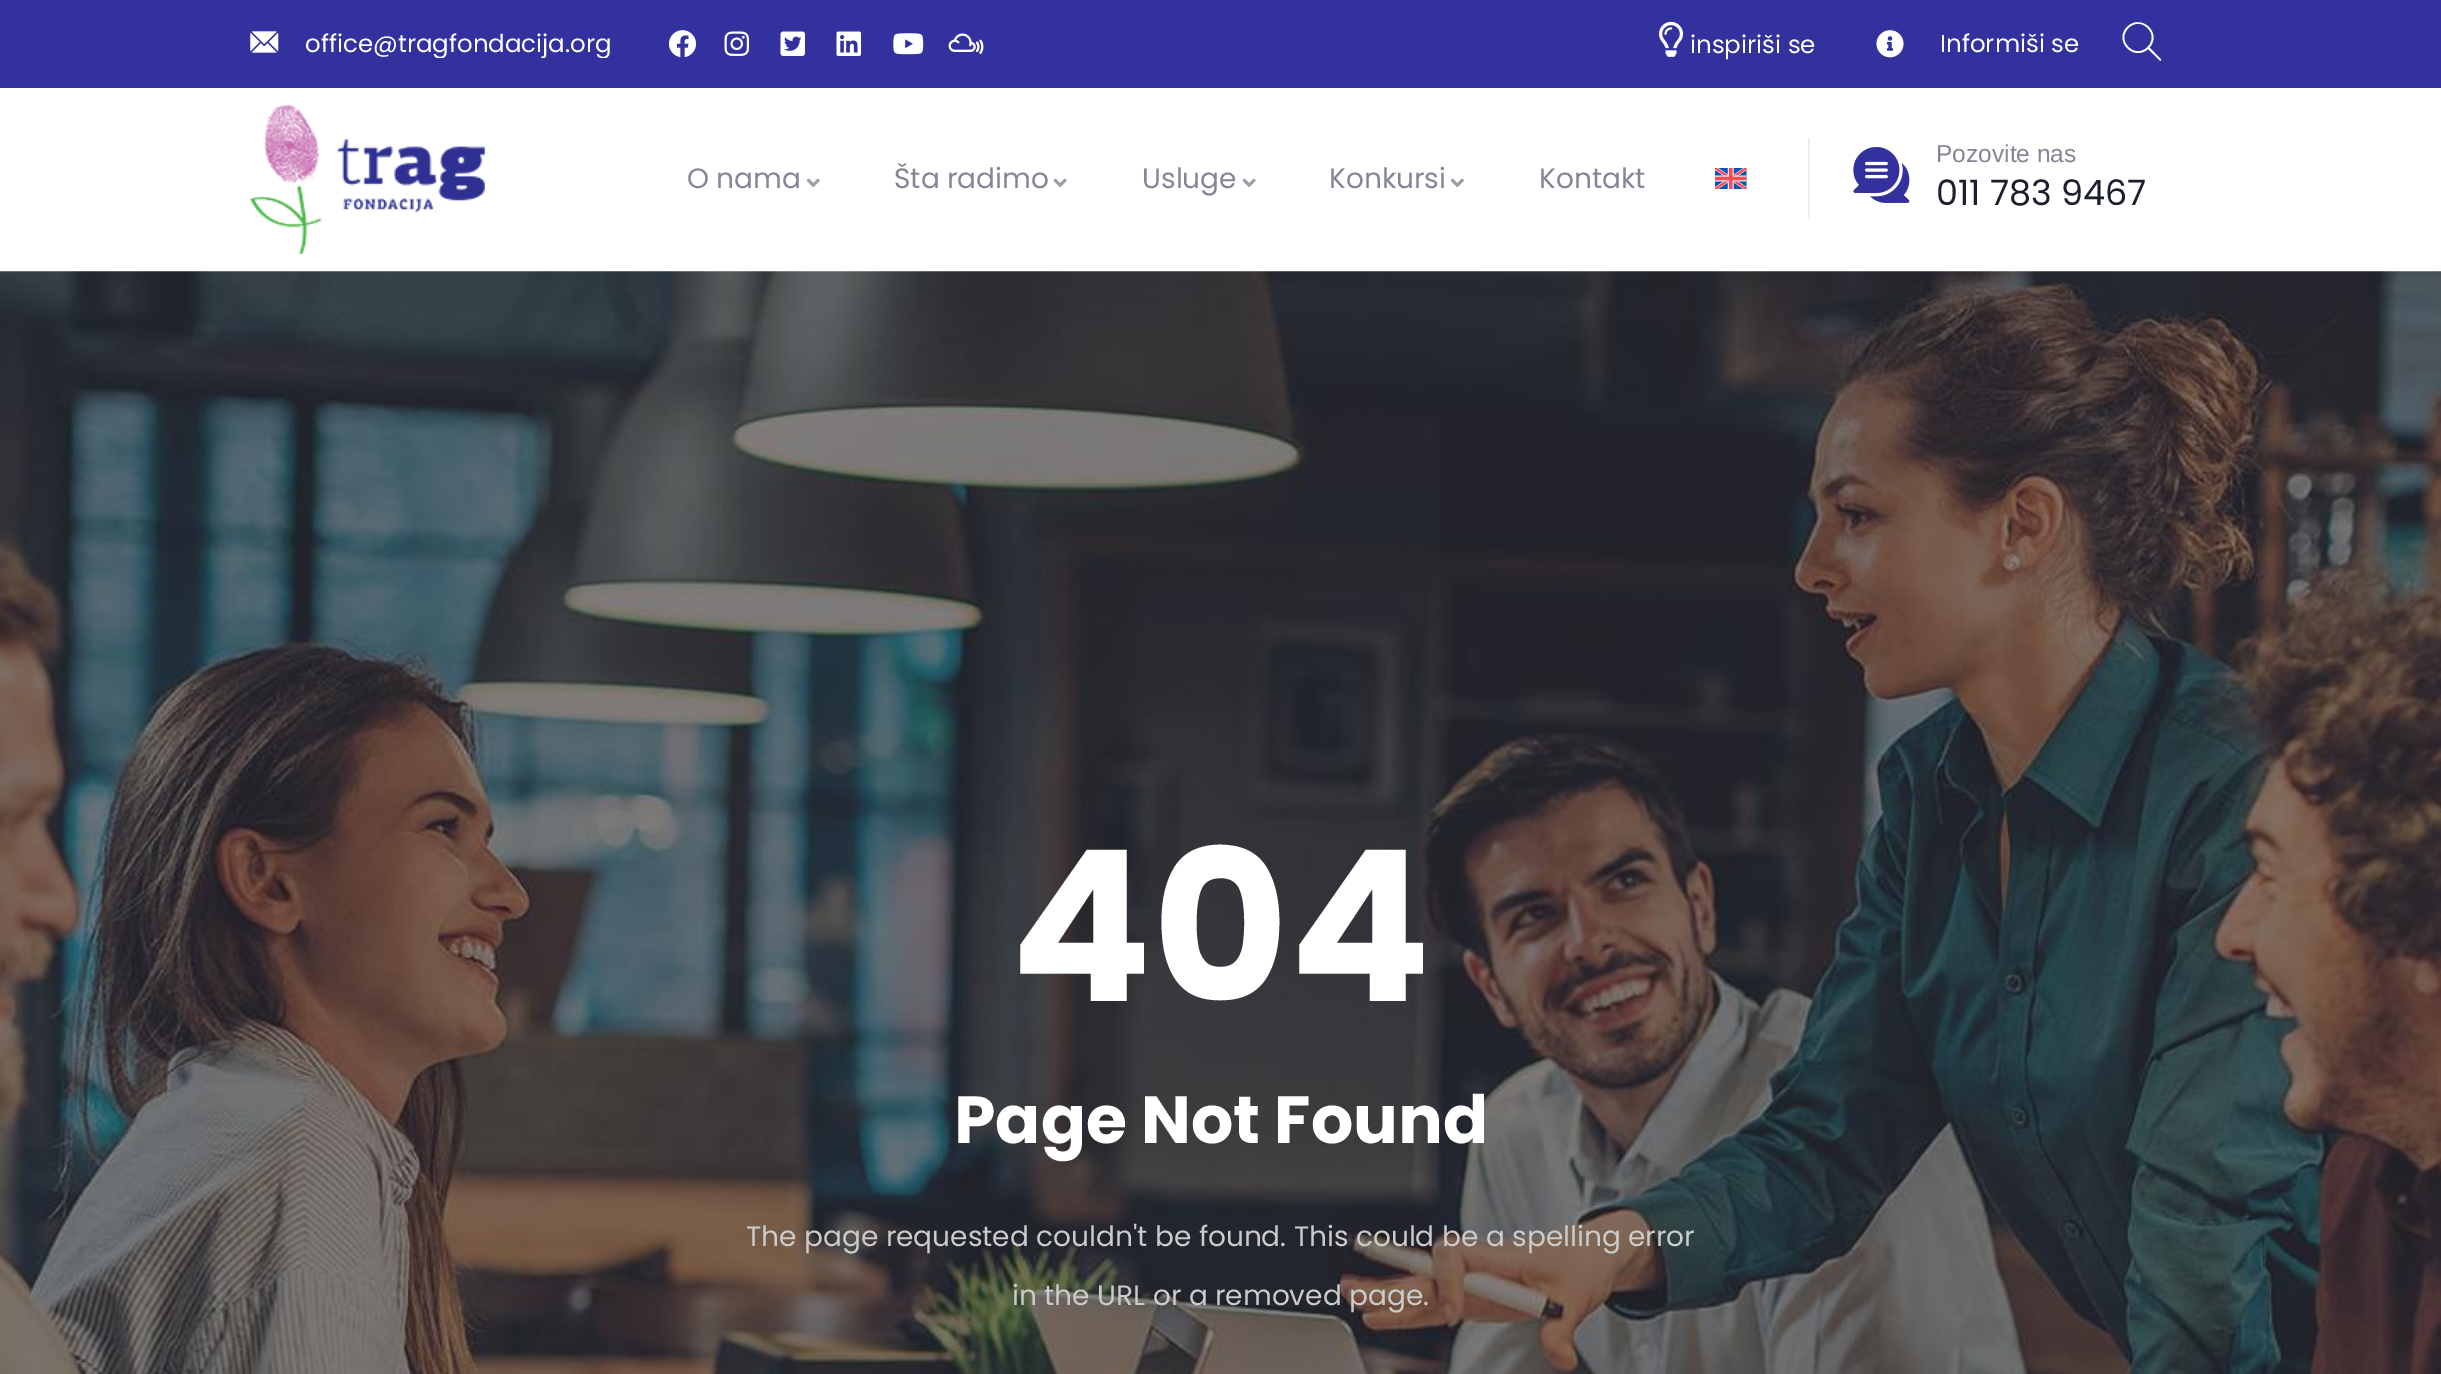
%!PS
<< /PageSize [2441 1374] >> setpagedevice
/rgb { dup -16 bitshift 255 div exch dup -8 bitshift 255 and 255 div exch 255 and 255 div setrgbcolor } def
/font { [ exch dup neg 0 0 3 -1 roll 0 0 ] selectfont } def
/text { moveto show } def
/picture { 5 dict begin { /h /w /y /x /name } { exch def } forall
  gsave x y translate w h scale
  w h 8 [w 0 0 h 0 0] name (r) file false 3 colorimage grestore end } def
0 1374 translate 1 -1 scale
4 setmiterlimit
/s1 { /Poppins-Regular 24.5 font 16#FFFFFF rgb } def
/s2 { /Poppins-Regular 28 font 16#838694 rgb } def
/s3 { /LiberationSans-Regular 24.5 font 16#838694 rgb } def
/s4 { /Poppins-Regular 35 font 16#1B1F2E rgb } def
/s5 { /Poppins-Bold 210 font 16#FFFFFF rgb } def
/s6 { /Poppins-Bold 66.5 font 16#FFFFFF rgb } def
/s7 { /Poppins-Regular 28 font 16#CCCCCC rgb } def
16#FFFFFF rgb
0 0 2441 1374 rectfill
16#33319D rgb
0 0 2441 88 rectfill
(pic1.raw) 250 31 29 22 picture
gsave
250 28 366 30 rectclip
s1
(office@tragfondacija.org) 305 52 text
grestore
(pic2.raw) 669 30 28 28 picture
(pic3.raw) 724 31 26 25 picture
(pic4.raw) 780 31 25 25 picture
(pic5.raw) 836 31 25 25 picture
(pic6.raw) 893 33 31 22 picture
(pic7.raw) 948 33 36 21 picture
(pic8.raw) 1659 21 25 36 picture
s1
(inspiriši se) 1690 53 text
(pic9.raw) 1876 30 28 28 picture
(Informiši se) 1940 52 text
2161 59.5 moveto 2161.5 60 2161 61 2160 60.5 curveto 2148 49 lineto 2133.5 62 2113.5 40.5 2127 27 curveto 2141 13 2162.5 33 2149.5 47.5 curveto closepath 2128.5 47 moveto 2141 60 2160.5 40.5 2147.5 28 curveto 2135 15 2115.5 34.5 2128.5 47 curveto closepath fill
(pic10.raw) 250 105 235 149 picture
s2
(O nama) 687 188 text
(pic11.raw) 806 178 14 10 picture
(Šta radimo) 894 188 text
(pic12.raw) 1053 178 14 9 picture
(Usluge) 1142 188 text
(pic12.raw) 1242 178 14 9 picture
(Konkursi) 1329 188 text
(pic11.raw) 1450 178 14 10 picture
(Kontakt) 1539 188 text
(pic13.raw) 1715 168 32 21 picture
16#F7EAE8 rgb
1808 138 2 81 rectfill
(pic14.raw) 1853 147 57 56 picture
s3
(Pozovite nas) 1936 162 text
s4
(011 783 9467) 1936 205 text
(pic15.raw) 0 271 2441 1103 picture
s5
(404) 1010 1001 text
s6
(Page Not Found) 954 1143 text
s7
(The page requested couldn't be found. This could be a spelling error) 746 1246 text
(in the URL or a removed page.) 1012 1305 text
showpage
